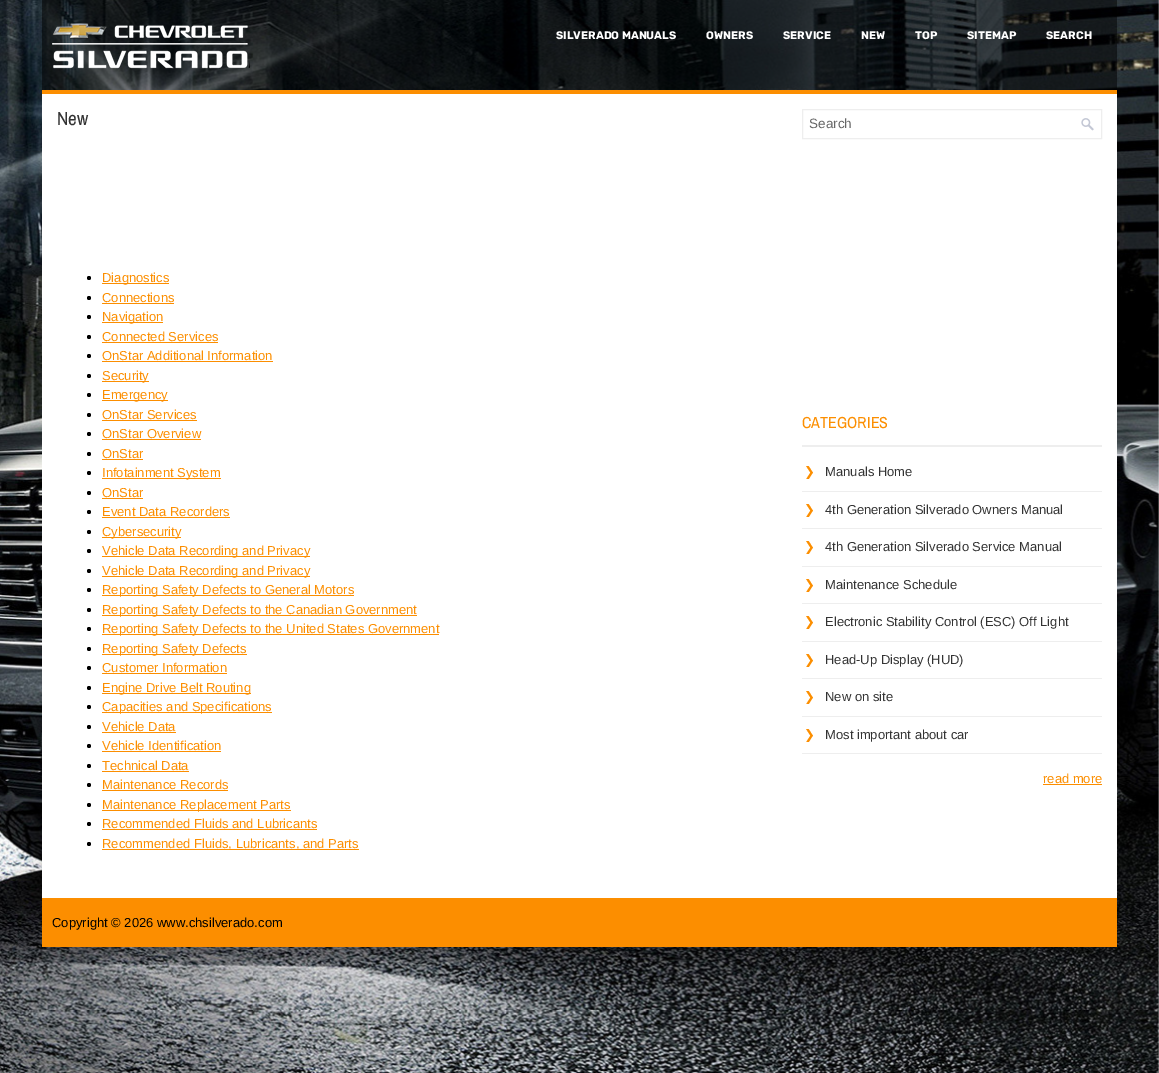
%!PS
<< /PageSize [1159 1073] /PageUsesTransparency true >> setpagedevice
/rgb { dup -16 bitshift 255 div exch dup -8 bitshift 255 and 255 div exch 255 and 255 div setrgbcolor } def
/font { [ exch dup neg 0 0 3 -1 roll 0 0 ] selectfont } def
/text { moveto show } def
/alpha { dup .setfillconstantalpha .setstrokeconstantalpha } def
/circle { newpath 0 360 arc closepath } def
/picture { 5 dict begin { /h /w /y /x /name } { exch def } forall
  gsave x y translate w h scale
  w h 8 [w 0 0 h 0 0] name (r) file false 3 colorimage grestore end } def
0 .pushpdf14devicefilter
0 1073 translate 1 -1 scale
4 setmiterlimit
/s1 { /Rubik-Bold 11 font 16#FFFFFF rgb } def
/s2 { /ArchivoNarrow-Regular 19 font 16#333333 rgb } def
/s3 { /LiberationSans-Regular 13 font 16#FC8E00 rgb } def
/s4 { /LiberationSans-Regular 13.5 font 16#666666 rgb } def
/s5 { /ArchivoNarrow-Regular 16 font 16#FC8E00 rgb } def
/s6 { /DejaVuSans-Regular 13 font 16#FC8E00 rgb } def
/s7 { /LiberationSans-Regular 13 font 16#333333 rgb } def
/s8 { /LiberationSans-Regular 13 font 16#000000 rgb } def
16#FFFFFF rgb
0 0 1159 1073 rectfill
(pic1.raw) 0 0 1159 1073 picture
0.5 alpha
16#000000 rgb
42 0 1075 90 rectfill
1 alpha
(pic2.raw) 52 23 198 46 picture
s1
(SILVERADO MANUALS) 556 39 text
(OWNERS) 706 39 text
(SERVICE) 783 39 text
(NEW) 861 39 text
(TOP) 915 39 text
(SITEMAP) 967 39 text
(SEARCH) 1046 39 text
42 94 1075 804 rectfill
16#FC8E00 rgb
42 90 1075 4 rectfill
s2
(New) 57 125 text
16#000000 rgb
89 278 2 circle fill
16#FC8E00 rgb
102 283 67 1 rectfill
s3
(Diagnostics) 102 282 text
16#000000 rgb
89 298 2 circle fill
s3
(Connections) 102 302 text
102 303 72 1 rectfill
16#000000 rgb
89 317 2 circle fill
16#FC8E00 rgb
102 322 61 1 rectfill
(Navigation) 102 321 text
16#000000 rgb
89 337 2 circle fill
s3
(Connected Services) 102 341 text
102 342 116 1 rectfill
16#000000 rgb
89 356 2 circle fill
s3
(OnStar Additional Information) 102 360 text
102 361 171 1 rectfill
16#000000 rgb
89 376 2 circle fill
16#FC8E00 rgb
102 381 47 1 rectfill
(Security) 102 380 text
16#000000 rgb
89 395 2 circle fill
16#FC8E00 rgb
102 400 66 1 rectfill
(Emergency) 102 399 text
16#000000 rgb
89 415 2 circle fill
s3
(OnStar Services) 102 419 text
102 420 95 1 rectfill
16#000000 rgb
89 434 2 circle fill
s3
(OnStar Overview) 102 438 text
102 439 99 1 rectfill
16#000000 rgb
89 454 2 circle fill
s3
(OnStar) 102 458 text
102 459 41 1 rectfill
16#000000 rgb
89 473 2 circle fill
16#FC8E00 rgb
102 478 119 1 rectfill
(Infotainment System) 102 477 text
16#000000 rgb
89 493 2 circle fill
s3
(OnStar) 102 497 text
102 498 41 1 rectfill
16#000000 rgb
89 512 2 circle fill
s3
(Event Data Recorders) 102 516 text
102 517 128 1 rectfill
16#000000 rgb
89 532 2 circle fill
16#FC8E00 rgb
102 537 79 1 rectfill
(Cybersecurity) 102 536 text
16#000000 rgb
89 551 2 circle fill
16#FC8E00 rgb
102 556 208 1 rectfill
(Vehicle Data Recording and Privacy) 102 555 text
16#000000 rgb
89 571 2 circle fill
16#FC8E00 rgb
102 576 208 1 rectfill
(Vehicle Data Recording and Privacy) 102 575 text
16#000000 rgb
89 590 2 circle fill
16#FC8E00 rgb
102 595 252 1 rectfill
(Reporting Safety Defects to General Motors) 102 594 text
16#000000 rgb
89 610 2 circle fill
16#FC8E00 rgb
102 615 315 1 rectfill
(Reporting Safety Defects to the Canadian Government) 102 614 text
16#000000 rgb
89 629 2 circle fill
16#FC8E00 rgb
102 634 337 1 rectfill
(Reporting Safety Defects to the United States Government) 102 633 text
16#000000 rgb
89 649 2 circle fill
16#FC8E00 rgb
102 654 145 1 rectfill
(Reporting Safety Defects) 102 653 text
16#000000 rgb
89 668 2 circle fill
s3
(Customer Information) 102 672 text
102 673 125 1 rectfill
16#000000 rgb
89 688 2 circle fill
16#FC8E00 rgb
102 693 149 1 rectfill
(Engine Drive Belt Routing) 102 692 text
16#000000 rgb
89 707 2 circle fill
16#FC8E00 rgb
102 712 170 1 rectfill
(Capacities and Specifications) 102 711 text
16#000000 rgb
89 727 2 circle fill
s3
(Vehicle Data) 102 731 text
102 732 74 1 rectfill
16#000000 rgb
89 746 2 circle fill
s3
(Vehicle Identification) 102 750 text
102 751 119 1 rectfill
16#000000 rgb
89 766 2 circle fill
s3
(Technical Data) 102 770 text
102 771 87 1 rectfill
16#000000 rgb
89 785 2 circle fill
s3
(Maintenance Records) 102 789 text
102 790 126 1 rectfill
16#000000 rgb
89 805 2 circle fill
16#FC8E00 rgb
102 810 189 1 rectfill
(Maintenance Replacement Parts) 102 809 text
16#000000 rgb
89 824 2 circle fill
s3
(Recommended Fluids and Lubricants) 102 828 text
102 829 215 1 rectfill
16#000000 rgb
89 844 2 circle fill
16#FC8E00 rgb
102 849 257 1 rectfill
(Recommended Fluids, Lubricants, and Parts) 102 848 text
16#EEEEEE rgb
802.5 109.5 299 29 rectstroke
s4
(Search) 809 128 text
(pic3.raw) 1081 118 13 13 picture
16#EEEEEE rgb
802 445 300 2 rectfill
s5
(CATEGORIES) 802 428 text
16#EEEEEE rgb
802 491 300 1 rectfill
s6
(❯) 804 476 text
s7
(Manuals Home) 825 476 text
16#EEEEEE rgb
802 528 300 1 rectfill
s6
(❯) 804 514 text
s7
(4th Generation Silverado Owners Manual) 825 514 text
16#EEEEEE rgb
802 566 300 1 rectfill
s6
(❯) 804 551 text
s7
(4th Generation Silverado Service Manual) 825 551 text
16#EEEEEE rgb
802 603 300 1 rectfill
s6
(❯) 804 589 text
s7
(Maintenance Schedule) 825 589 text
16#EEEEEE rgb
802 641 300 1 rectfill
s6
(❯) 804 626 text
s7
(Electronic Stability Control \(ESC\) Off Light) 825 626 text
16#EEEEEE rgb
802 678 300 1 rectfill
s6
(❯) 804 664 text
s7
(Head-Up Display \(HUD\)) 825 664 text
16#EEEEEE rgb
802 716 300 1 rectfill
s6
(❯) 804 701 text
s7
(New on site) 825 701 text
16#EEEEEE rgb
802 753 300 1 rectfill
s6
(❯) 804 739 text
s7
(Most important about car) 825 739 text
s3
(read more) 1043 783 text
1043 784 59 1 rectfill
42 898 1075 49 rectfill
s8
(Copyright © 2026 www.chsilverado.com) 52 927 text
.poppdf14devicefilter showpage
